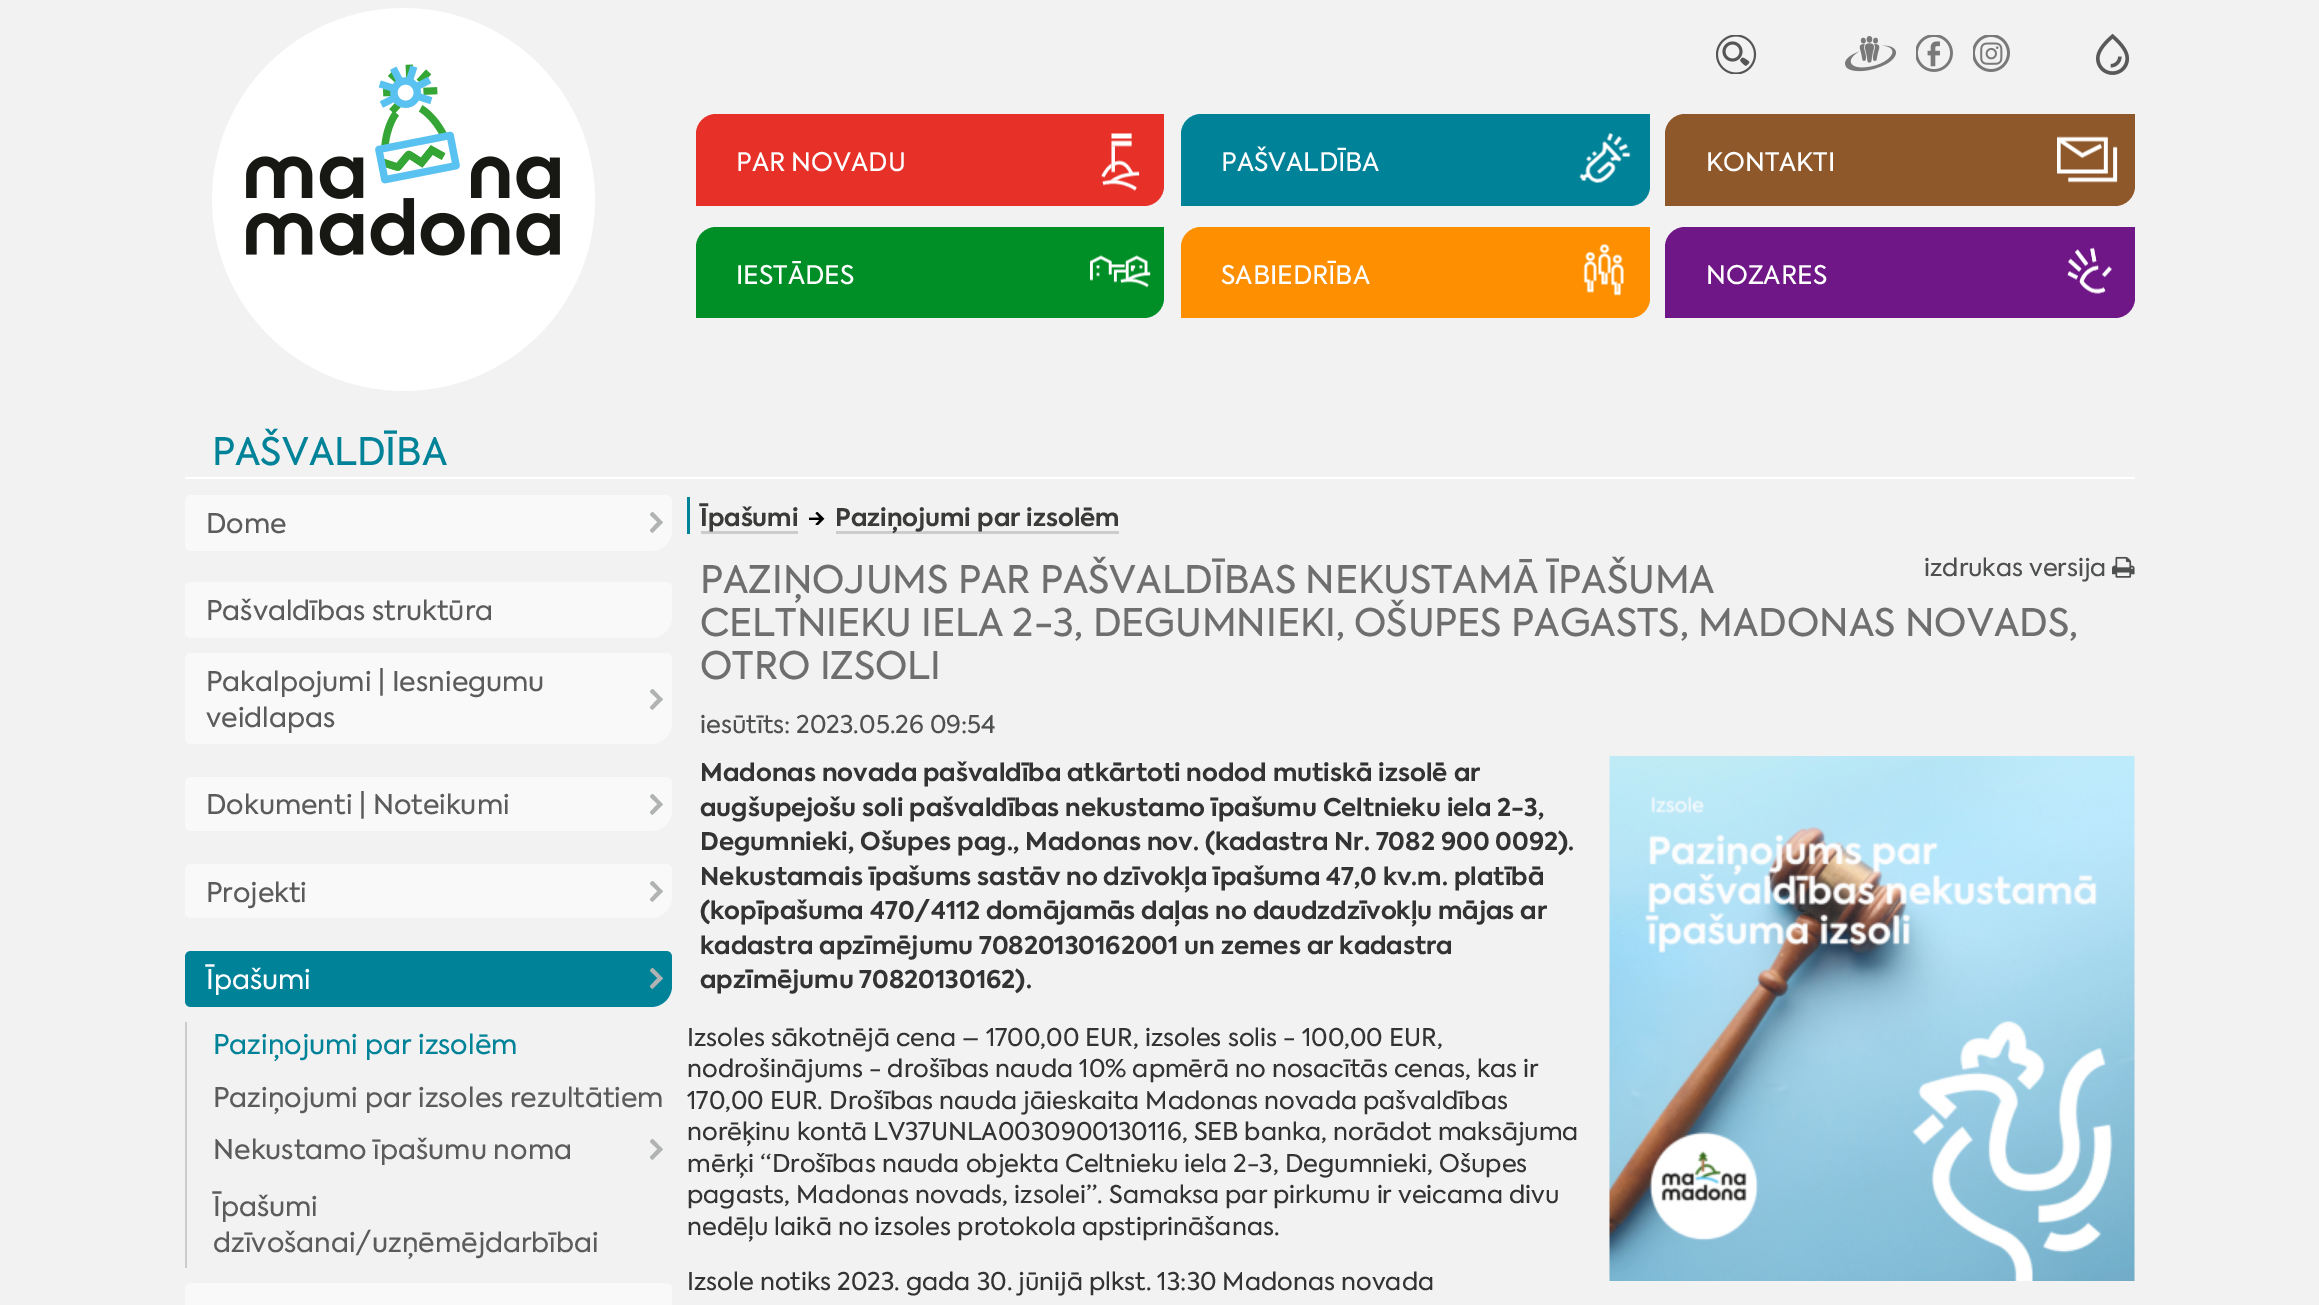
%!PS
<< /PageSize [2319 1305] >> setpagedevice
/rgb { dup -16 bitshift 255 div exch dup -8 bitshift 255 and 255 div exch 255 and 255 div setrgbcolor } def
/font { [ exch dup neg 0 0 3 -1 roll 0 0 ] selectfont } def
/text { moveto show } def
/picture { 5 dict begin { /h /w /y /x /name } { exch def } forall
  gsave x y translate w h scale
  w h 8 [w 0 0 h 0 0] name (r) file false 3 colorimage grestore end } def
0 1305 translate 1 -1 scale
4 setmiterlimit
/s1 { /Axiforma-Regular 25.5 font 16#FFFFFF rgb } def
/s2 { /Axiforma-Regular 37.8 font 16#008298 rgb } def
/s3 { /Axiforma-Regular 27 font 16#5B5B5B rgb } def
/s4 { /Axiforma-Regular 27 font 16#FFFFFF rgb } def
/s5 { /Axiforma-Regular 27 font 16#008298 rgb } def
/s6 { /Axiforma-Bold 24.3 font 16#3A3A39 rgb } def
/s7 { /Axiforma-Regular 37.8 font 16#6E6E6E rgb } def
/s8 { /Axiforma-Regular 24.3 font 16#4E4F4F rgb } def
/s9 { /Axiforma-Bold 24.3 font 16#333333 rgb } def
/s10 { /Axiforma-Regular 24.3 font 16#333333 rgb } def
16#F2F2F2 rgb
0 0 2319 1305 rectfill
(pic1.raw) 212 8 383 383 picture
(pic2.raw) 1716 35 41 39 picture
(pic3.raw) 1845 36 51 36 picture
(pic4.raw) 1916 35 37 37 picture
(pic5.raw) 1973 35 37 37 picture
(pic6.raw) 2096 33 34 42 picture
16#E73028 rgb
716 114 moveto 1164 114 lineto 1164 186 lineto 1164 197 1155 206 1144 206 curveto 696 206 lineto 696 134 lineto 696 123 705 114 716 114 curveto closepath fill
s1
(PAR NOVADU) 736 171 text
(pic7.raw) 1101 133 39 58 picture
16#008298 rgb
1201 114 moveto 1650 114 lineto 1650 186 lineto 1650 197 1641 206 1630 206 curveto 1181 206 lineto 1181 134 lineto 1181 123 1190 114 1201 114 curveto closepath fill
s1
(PAŠVALDĪBA) 1221 171 text
(pic8.raw) 1579 132 52 51 picture
16#8F582B rgb
1685 114 moveto 2135 114 lineto 2135 186 lineto 2135 197 2126 206 2115 206 curveto 1665 206 lineto 1665 134 lineto 1665 123 1674 114 1685 114 curveto closepath fill
s1
(KONTAKTI) 1706 171 text
(pic9.raw) 2057 136 61 47 picture
16#008F27 rgb
716 227 moveto 1164 227 lineto 1164 298 lineto 1164 309 1155 318 1144 318 curveto 696 318 lineto 696 247 lineto 696 236 705 227 716 227 curveto closepath fill
s1
(IESTĀDES) 736 284 text
(pic10.raw) 1090 255 61 33 picture
16#FD8F00 rgb
1201 227 moveto 1650 227 lineto 1650 298 lineto 1650 309 1641 318 1630 318 curveto 1181 318 lineto 1181 247 lineto 1181 236 1190 227 1201 227 curveto closepath fill
s1
(SABIEDRĪBA) 1221 284 text
(pic11.raw) 1583 244 41 52 picture
16#6F1786 rgb
1685 227 moveto 2135 227 lineto 2135 298 lineto 2135 309 2126 318 2115 318 curveto 1665 318 lineto 1665 247 lineto 1665 236 1674 227 1685 227 curveto closepath fill
s1
(NOZARES) 1706 284 text
(pic12.raw) 2067 247 45 47 picture
185 477 1950 2 rectfill
s2
(PAŠVALDĪBA) 212 465 text
16#F9F9F9 rgb
191 495 moveto 666 495 lineto 669.5 495 672 497.5 672 501 curveto 672 530 lineto 672 541.5 662.5 551 651 551 curveto 191 551 lineto 187.5 551 185 548.5 185 545 curveto 185 501 lineto 185 497.5 187.5 495 191 495 curveto closepath fill
s3
(Dome) 206 533 text
gsave
650 512 15 21 rectclip
16#B1B2B2 rgb
651 513 moveto 649.5 514.5 lineto 657.5 522 lineto 649.5 530.5 lineto 652.5 533 lineto 663 522.5 lineto 652.5 511.5 lineto closepath fill
grestore
16#F9F9F9 rgb
191 582 moveto 666 582 lineto 669.5 582 672 584.5 672 588 curveto 672 617 lineto 672 628.5 662.5 638 651 638 curveto 191 638 lineto 187.5 638 185 635.5 185 632 curveto 185 588 lineto 185 584.5 187.5 582 191 582 curveto closepath fill
s3
(Pašvaldības struktūra) 206 620 text
16#F9F9F9 rgb
191 653 moveto 666 653 lineto 669.5 653 672 655.5 672 659 curveto 672 723 lineto 672 734.5 662.5 744 651 744 curveto 191 744 lineto 187.5 744 185 741.5 185 738 curveto 185 659 lineto 185 655.5 187.5 653 191 653 curveto closepath fill
s3
(Pakalpojumi | Iesniegumu) 206 691 text
(veidlapas) 206 727 text
gsave
650 689 15 21 rectclip
16#B1B2B2 rgb
651 690 moveto 649.5 691.5 lineto 657.5 699 lineto 649.5 707.5 lineto 652.5 710 lineto 663 699.5 lineto 652.5 688.5 lineto closepath fill
grestore
16#F9F9F9 rgb
191 777 moveto 666 777 lineto 669.5 777 672 779.5 672 783 curveto 672 810 lineto 672 821.5 662.5 831 651 831 curveto 191 831 lineto 187.5 831 185 828.5 185 825 curveto 185 783 lineto 185 779.5 187.5 777 191 777 curveto closepath fill
s3
(Dokumenti | Noteikumi) 206 814 text
gsave
650 794 15 21 rectclip
16#B1B2B2 rgb
651 795 moveto 649.5 796.5 lineto 657.5 804 lineto 649.5 812.5 lineto 652.5 815 lineto 663 804.5 lineto 652.5 793.5 lineto closepath fill
grestore
16#F9F9F9 rgb
191 864 moveto 666 864 lineto 669.5 864 672 866.5 672 870 curveto 672 897 lineto 672 908.5 662.5 918 651 918 curveto 191 918 lineto 187.5 918 185 915.5 185 912 curveto 185 870 lineto 185 866.5 187.5 864 191 864 curveto closepath fill
s3
(Projekti) 206 902 text
gsave
650 881 15 21 rectclip
16#B1B2B2 rgb
651 882 moveto 649.5 883.5 lineto 657.5 891 lineto 649.5 899.5 lineto 652.5 902 lineto 663 891.5 lineto 652.5 880.5 lineto closepath fill
grestore
16#008298 rgb
191 951 moveto 666 951 lineto 669.5 951 672 953.5 672 957 curveto 672 986 lineto 672 997.5 662.5 1007 651 1007 curveto 191 1007 lineto 187.5 1007 185 1004.5 185 1001 curveto 185 957 lineto 185 953.5 187.5 951 191 951 curveto closepath fill
s4
(Īpašumi) 206 989 text
gsave
650 968 15 21 rectclip
16#B1B2B2 rgb
651 969 moveto 649.5 970.5 lineto 657.5 978 lineto 649.5 986.5 lineto 652.5 989 lineto 663 978.5 lineto 652.5 967.5 lineto closepath fill
grestore
16#CCCCCC rgb
185 1022 2 246 rectfill
s5
(Paziņojumi par izsolēm) 213 1054 text
s3
(Paziņojumi par izsoles rezultātiem) 213 1107 text
(Nekustamo īpašumu noma) 213 1159 text
gsave
650 1139 15 22 rectclip
16#B1B2B2 rgb
651 1140 moveto 649.5 1141.5 lineto 657.5 1149 lineto 649.5 1157.5 lineto 652.5 1160 lineto 663 1149.5 lineto 652.5 1138.5 lineto closepath fill
grestore
(Īpašumi) 213 1216 text
(dzīvošanai/uzņēmējdarbībai) 213 1252 text
16#F9F9F9 rgb
191 1283 moveto 666 1283 lineto 669.5 1283 672 1285.5 672 1289 curveto 672 1305 lineto 672 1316.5 662.5 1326 651 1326 curveto 191 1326 lineto 187.5 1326 185 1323.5 185 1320 curveto 185 1289 lineto 185 1285.5 187.5 1283 191 1283 curveto closepath fill
16#008298 rgb
687 497 3 37 rectfill
16#CCCCCC rgb
701 531 97 3 rectfill
s6
(Īpašumi) 700 526 text
(pic13.raw) 809 512 16 13 picture
16#CCCCCC rgb
836 531 283 3 rectfill
s6
(Paziņojumi par izsolēm) 835 526 text
s7
(PAZIŅOJUMS PAR PAŠVALDĪBAS NEKUSTAMĀ ĪPAŠUMA) 700 593 text
(CELTNIEKU IELA 2-3, DEGUMNIEKI, OŠUPES PAGASTS, MADONAS NOVADS,) 700 636 text
(OTRO IZSOLI) 700 679 text
s8
(izdrukas versija) 1924 576 text
(pic14.raw) 2112 556 23 22 picture
(iesūtīts: 2023.05.26 09:54) 700 733 text
s9
(Madonas novada pašvaldība atkārtoti nodod mutiskā izsolē ar) 700 781 text
(augšupejošu soli pašvaldības nekustamo īpašumu Celtnieku iela 2-3,) 700 816 text
(Degumnieki, Ošupes pag., Madonas nov. \(kadastra Nr. 7082 900 0092\).) 700 850 text
(Nekustamais īpašums sastāv no dzīvokļa īpašuma 47,0 kv.m. platībā) 700 885 text
(\(kopīpašuma 470/4112 domājamās daļas no daudzdzīvokļu mājas ar) 700 919 text
(kadastra apzīmējumu 70820130162001 un zemes ar kadastra) 700 954 text
(apzīmējumu 70820130162\).) 700 988 text
(pic15.raw) 1609 756 526 525 picture
s10
(Izsoles sākotnējā cena – 1700,00 EUR, izsoles solis - 100,00 EUR,) 687 1046 text
(nodrošinājums - drošības nauda 10% apmērā no nosacītās cenas, kas ir) 687 1077 text
(170,00 EUR. Drošības nauda jāieskaita Madonas novada pašvaldības) 687 1109 text
(norēķinu kontā LV37UNLA0030900130116, SEB banka, norādot maksājuma) 687 1140 text
(mērķi “Drošības nauda objekta Celtnieku iela 2-3, Degumnieki, Ošupes) 687 1172 text
(pagasts, Madonas novads, izsolei”. Samaksa par pirkumu ir veicama divu) 687 1203 text
(nedēļu laikā no izsoles protokola apstiprināšanas.) 687 1235 text
(Izsole notiks 2023. gada 30. jūnijā plkst. 13:30 Madonas novada) 687 1290 text
showpage
